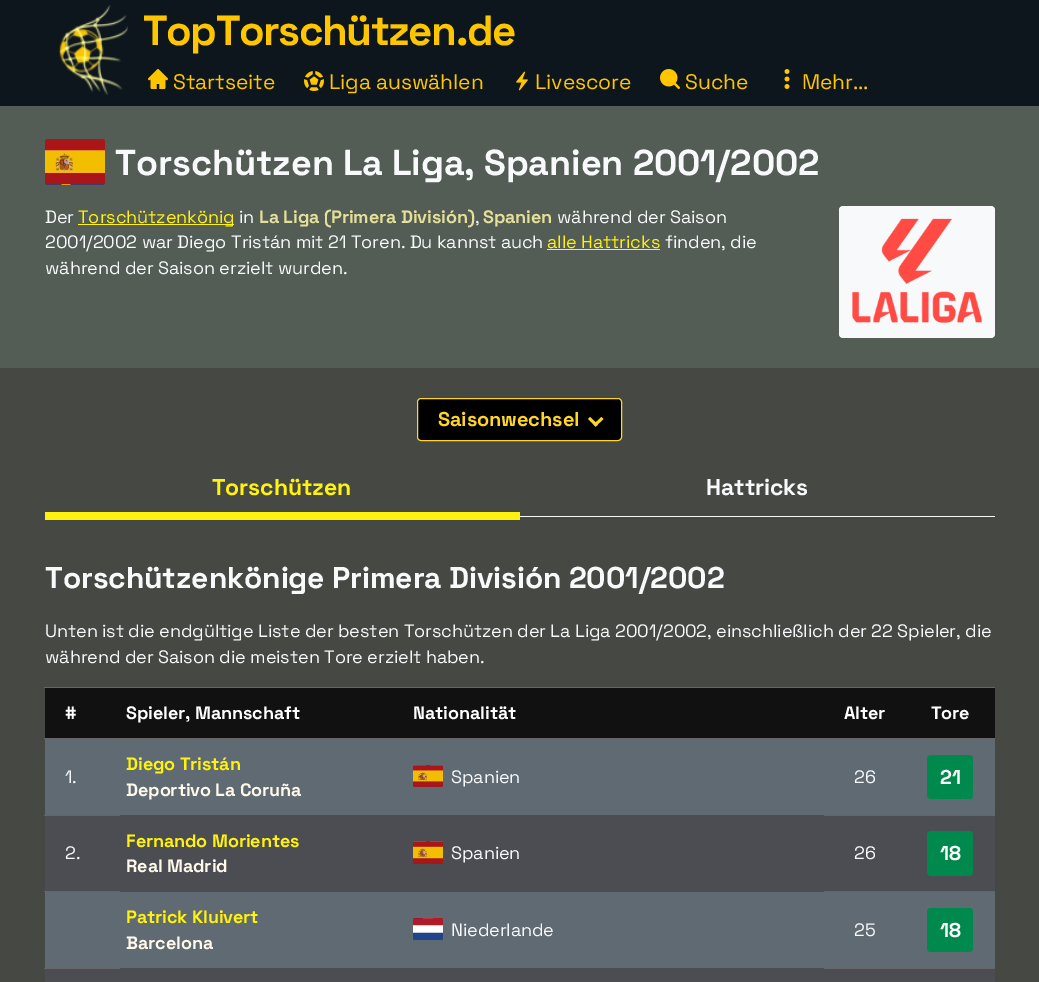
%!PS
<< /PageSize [1039 982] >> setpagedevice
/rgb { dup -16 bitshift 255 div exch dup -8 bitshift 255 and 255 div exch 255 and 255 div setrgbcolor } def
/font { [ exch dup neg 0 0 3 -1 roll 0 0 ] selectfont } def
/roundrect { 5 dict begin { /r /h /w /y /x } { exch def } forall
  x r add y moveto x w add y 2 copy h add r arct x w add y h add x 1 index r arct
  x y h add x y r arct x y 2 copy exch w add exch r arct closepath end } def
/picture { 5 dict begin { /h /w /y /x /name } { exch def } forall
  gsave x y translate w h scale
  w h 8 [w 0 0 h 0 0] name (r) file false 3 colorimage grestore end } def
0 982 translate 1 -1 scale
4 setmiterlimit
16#0D161D rgb
0 0 1039 982 rectfill
(pic1.raw) 59 5 69 90 picture
/SpaceGrotesk-Bold 42 font
16#FFC600 rgb
143 45 moveto -1.5 0 (TopTorschützen.de) ashow
(pic2.raw) 148 69 20 20 picture
/SpaceGrotesk-Regular 21 font
173 89 moveto -0.1 0 (Startseite) ashow
(pic3.raw) 304 71 20 20 picture
329 89 moveto -0.1 0 (Liga auswählen) ashow
(pic4.raw) 516 71 12 20 picture
535 89 moveto -0.1 0 (Livescore) ashow
(pic5.raw) 660 69 20 20 picture
685 89 moveto -0.1 0 (Suche) ashow
(pic6.raw) 784 69 6 20 picture
802 89 moveto -0.1 0 (Mehr...) ashow
16#535C55 rgb
0 106 1039 262 rectfill
(pic7.raw) 45 139 60 46 picture
/SpaceGrotesk-Bold 36 font
16#F7F9FB rgb
115 175 moveto -0.1 0 (Torschützen La Liga, Spanien 2001/2002) ashow
/SpaceGrotesk-Regular 18 font
45 223 moveto -0.1 0 (Der) ashow
16#FFF20E rgb
78 224 156 1 rectfill
78 223 moveto -0.1 0 (Torschützenkönig) ashow
16#F7F9FB rgb
239 223 moveto -0.1 0 (in) ashow
/SpaceGrotesk-Bold 18 font
16#E5E098 rgb
259 223 moveto -0.1 0 (La Liga \(Primera División\)) ashow
/SpaceGrotesk-Regular 18 font
16#F7F9FB rgb
475 223 moveto -0.1 0 (,) ashow
/SpaceGrotesk-Bold 18 font
16#E5E098 rgb
483 223 moveto -0.1 0 (Spanien) ashow
/SpaceGrotesk-Regular 18 font
16#F7F9FB rgb
557 223 moveto -0.1 0 (während der Saison) ashow
45 248 moveto -0.1 0 (2001/2002 war Diego Tristán mit 21 Toren. Du kannst auch) ashow
16#FFF20E rgb
547 248 moveto -0.1 0 (alle Hattricks) ashow
547 249 113 1 rectfill
16#F7F9FB rgb
665 248 moveto -0.1 0 (finden, die) ashow
45 274 moveto -0.1 0 (während der Saison erzielt wurden.) ashow
839 206 156 132 4 roundrect fill
(pic8.raw) 852 218 130 105 picture
16#464844 rgb
0 368 1039 614 rectfill
16#000000 rgb
417.5 398.5 204 42 3.5 roundrect gsave fill grestore
16#FFD627 rgb
stroke
/SpaceGrotesk-Bold 20 font
438 426 moveto -0.1 0 (Saisonwechsel) ashow
601.5 417 moveto 603.5 419 lineto 595.5 426.5 lineto 593.5 424.5 lineto closepath fill
590 417 moveto 598 424.5 lineto 595.5 426.5 lineto 588 419 lineto closepath fill
16#FFF20E rgb
45 512 475 8 rectfill
/SpaceGrotesk-Bold 23 font
212 495 moveto -0.1 0 (Torschützen) ashow
16#F7F9FB rgb
520 516 475 1 rectfill
706 495 moveto -0.1 0 (Hattricks) ashow
/SpaceGrotesk-Bold 30 font
45 588 moveto -0.1 0 (Torschützenkönige Primera División 2001/2002) ashow
/SpaceGrotesk-Regular 18 font
45 637 moveto -0.1 0 (Unten ist die endgültige Liste der besten Torschützen der La Liga 2001/2002, einschließlich der 22 Spieler, die) ashow
45 663 moveto -0.1 0 (während der Saison die meisten Tore erzielt haben.) ashow
16#111111 rgb
45 688 950 50 rectfill
/SpaceGrotesk-Bold 18 font
16#FFFFFF rgb
65 719 moveto -0.1 0 (#) ashow
126 719 moveto -0.1 0 (Spieler, Mannschaft) ashow
413 719 moveto -0.1 0 (Nationalität) ashow
844 719 moveto -0.1 0 (Alter) ashow
16#666666 rgb
44 687 951 1 rectfill
16#FFFFFF rgb
931 719 moveto -0.1 0 (Tore) ashow
16#5F6A72 rgb
45 739 362 76 rectfill
/SpaceGrotesk-Regular 18 font
16#F7F9FB rgb
65 783 moveto -0.1 0 (1.) ashow
/SpaceGrotesk-Bold 18 font
16#FFF20E rgb
126 770 moveto -0.1 0 (Diego Tristán) ashow
16#FFF9EA rgb
126 796 moveto -0.1 0 (Deportivo La Coruña) ashow
16#5F6A72 rgb
407 739 588 76 rectfill
(pic9.raw) 413 765 30 22 picture
/SpaceGrotesk-Regular 18 font
16#F7F9FB rgb
451 783 moveto -0.1 0 (Spanien) ashow
854 783 moveto -0.1 0 (26) ashow
16#666666 rgb
44 738 951 1 rectfill
16#00894C rgb
927 755 46 44 4 roundrect fill
/SpaceGrotesk-Bold 20 font
16#FFFFFF rgb
940 784 moveto -0.1 0 (21) ashow
16#4B4D52 rgb
45 816 75 75 rectfill
16#666666 rgb
44 815 76 1 rectfill
/SpaceGrotesk-Regular 18 font
16#F7F9FB rgb
65 859 moveto -0.1 0 (2.) ashow
16#666666 rgb
823 815 172 1 rectfill
823 891 172 1 rectfill
16#4B4D52 rgb
120 815 704 77 rectfill
/SpaceGrotesk-Bold 18 font
16#FFF20E rgb
126 847 moveto -0.1 0 (Fernando Morientes) ashow
16#FFF9EA rgb
126 872 moveto -0.1 0 (Real Madrid) ashow
(pic10.raw) 413 841 30 23 picture
/SpaceGrotesk-Regular 18 font
16#F7F9FB rgb
451 859 moveto -0.1 0 (Spanien) ashow
16#4B4D52 rgb
824 816 171 75 rectfill
16#F7F9FB rgb
854 859 moveto -0.1 0 (26) ashow
16#00894C rgb
927 831 46 45 4 roundrect fill
/SpaceGrotesk-Bold 20 font
16#FFFFFF rgb
940 860 moveto -0.1 0 (18) ashow
16#5F6A72 rgb
45 892 362 76 rectfill
16#666666 rgb
44 891 76 1 rectfill
/SpaceGrotesk-Bold 18 font
16#FFF20E rgb
126 923 moveto -0.1 0 (Patrick Kluivert) ashow
16#FFF9EA rgb
126 949 moveto -0.1 0 (Barcelona) ashow
16#5F6A72 rgb
407 892 588 76 rectfill
(pic11.raw) 413 918 30 22 picture
/SpaceGrotesk-Regular 18 font
16#F7F9FB rgb
451 936 moveto -0.1 0 (Niederlande) ashow
854 936 moveto -0.1 0 (25) ashow
16#00894C rgb
927 908 46 44 4 roundrect fill
/SpaceGrotesk-Bold 20 font
16#FFFFFF rgb
940 937 moveto -0.1 0 (18) ashow
16#4B4D52 rgb
45 969 75 13 rectfill
16#666666 rgb
44 968 76 1 rectfill
823 968 172 1 rectfill
16#4B4D52 rgb
120 968 704 14 rectfill
824 969 171 13 rectfill
showpage
